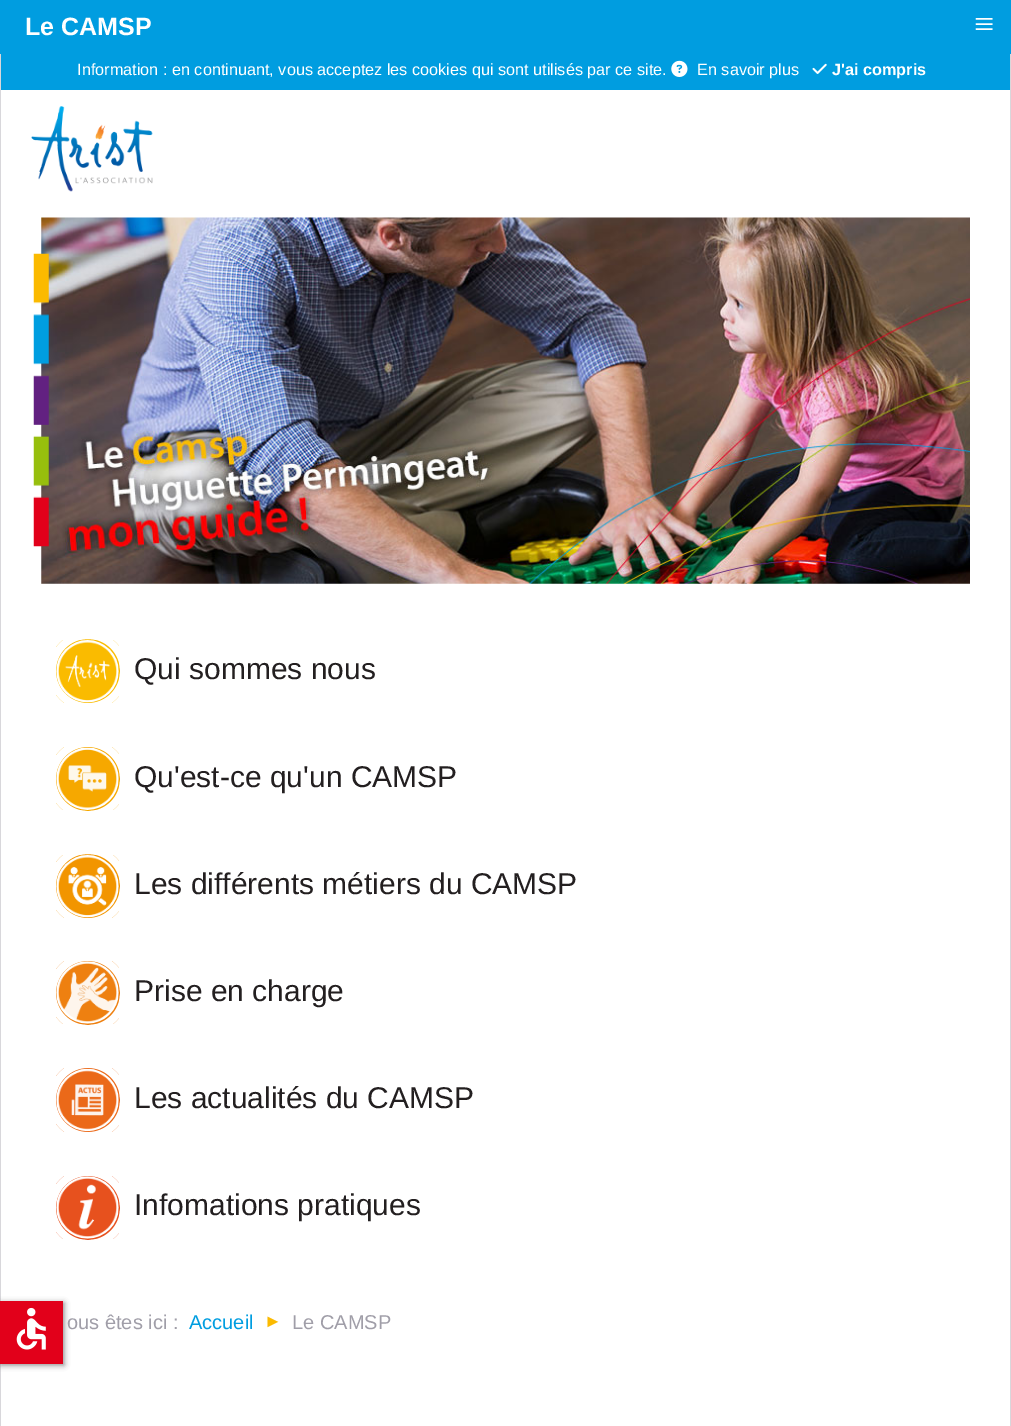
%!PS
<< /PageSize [1011 1426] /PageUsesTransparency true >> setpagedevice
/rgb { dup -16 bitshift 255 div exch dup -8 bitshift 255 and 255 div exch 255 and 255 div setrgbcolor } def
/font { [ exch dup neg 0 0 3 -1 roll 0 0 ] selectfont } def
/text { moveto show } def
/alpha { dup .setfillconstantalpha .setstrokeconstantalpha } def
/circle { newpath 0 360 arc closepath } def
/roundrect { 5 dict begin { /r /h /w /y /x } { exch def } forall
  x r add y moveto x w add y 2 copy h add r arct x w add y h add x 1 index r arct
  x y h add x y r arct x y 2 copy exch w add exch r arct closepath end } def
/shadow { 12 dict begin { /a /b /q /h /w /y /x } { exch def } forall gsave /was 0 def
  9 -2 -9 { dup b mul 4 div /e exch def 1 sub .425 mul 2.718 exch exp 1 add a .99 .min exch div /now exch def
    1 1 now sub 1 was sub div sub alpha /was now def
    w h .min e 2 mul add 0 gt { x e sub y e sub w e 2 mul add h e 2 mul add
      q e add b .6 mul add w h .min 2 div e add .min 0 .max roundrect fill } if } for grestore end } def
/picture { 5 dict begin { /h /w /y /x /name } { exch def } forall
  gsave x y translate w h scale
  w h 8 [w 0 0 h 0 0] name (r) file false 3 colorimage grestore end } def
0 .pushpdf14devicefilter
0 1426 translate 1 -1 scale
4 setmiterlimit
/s1 { /LiberationSans-Bold 25 font 16#FFFFFF rgb } def
/s2 { /LiberationSerif-Regular 36 font 16#FFFFFF rgb } def
/s3 { /LiberationSans-Regular 16.25 font 16#FFFFFF rgb } def
/s4 { /LiberationSans-Bold 16.25 font 16#FFFFFF rgb } def
/s5 { /LiberationSans-Regular 30 font 16#231F20 rgb } def
/s6 { /LiberationSans-Regular 20 font 16#A09EA8 rgb } def
/s7 { /LiberationSans-Regular 20 font 16#009DE0 rgb } def
/s8 { /LiberationSans-Regular 18 font 16#FBBA00 rgb } def
16#FFFFFF rgb
0 0 1011 1426 rectfill
16#D8D7DB rgb
1010 50 1 1376 rectfill
0 50 1 1376 rectfill
16#009DE0 rgb
0 0 1011 54 rectfill
s1
(Le CAMSP) 25 35 text
s2
(≡) 974 36 text
16#000000 rgb
1 1303 63 62 0 3 0.5 shadow
16#E2001A rgb
0 1301 63 63 rectfill
(pic1.raw) 16 1307 30 43 picture
16#009DE0 rgb
1 54 1009 36 rectfill
s3
(Information : en continuant, vous acceptez les cookies qui sont utilisés par ce site.) 77 75 text
(pic2.raw) 671 60 17 17 picture
(En savoir plus) 697 75 text
(pic3.raw) 812 63 15 11 picture
s4
(J'ai compris) 832 75 text
(pic4.raw) 31 106 122 86 picture
(pic5.raw) 41 217 929 367 picture
(pic6.raw) 33 253 16 294 picture
16#FABB00 rgb
88 671 36 circle gsave fill grestore
16#FFFFFF rgb
8 setlinewidth
stroke
(pic7.raw) 56 640 63 63 picture
s5
(Qui sommes nous) 134 679 text
16#F6A800 rgb
88 779 36 circle gsave fill grestore
16#FFFFFF rgb
stroke
(pic8.raw) 56 747 63 63 picture
s5
(Qu'est-ce qu'un CAMSP) 134 787 text
16#F29500 rgb
88 886 36 circle gsave fill grestore
16#FFFFFF rgb
stroke
(pic9.raw) 56 855 63 63 picture
s5
(Les différents métiers du CAMSP) 134 894 text
16#EE8010 rgb
88 993 36 circle gsave fill grestore
16#FFFFFF rgb
stroke
(pic10.raw) 56 961 63 63 picture
s5
(Prise en charge) 134 1001 text
16#EB6919 rgb
88 1100 36 circle gsave fill grestore
16#FFFFFF rgb
stroke
(pic11.raw) 56 1068 63 64 picture
s5
(Les actualités du CAMSP) 134 1108 text
16#E7511E rgb
88 1208 36 circle gsave fill grestore
16#FFFFFF rgb
stroke
(pic12.raw) 56 1176 63 63 picture
s5
(Infomations pratiques) 134 1215 text
s6
(ous êtes ici :) 67 1329 text
s7
(Accueil) 189 1329 text
s8
(►) 264 1327 text
s6
(Le CAMSP) 292 1329 text
.poppdf14devicefilter showpage
